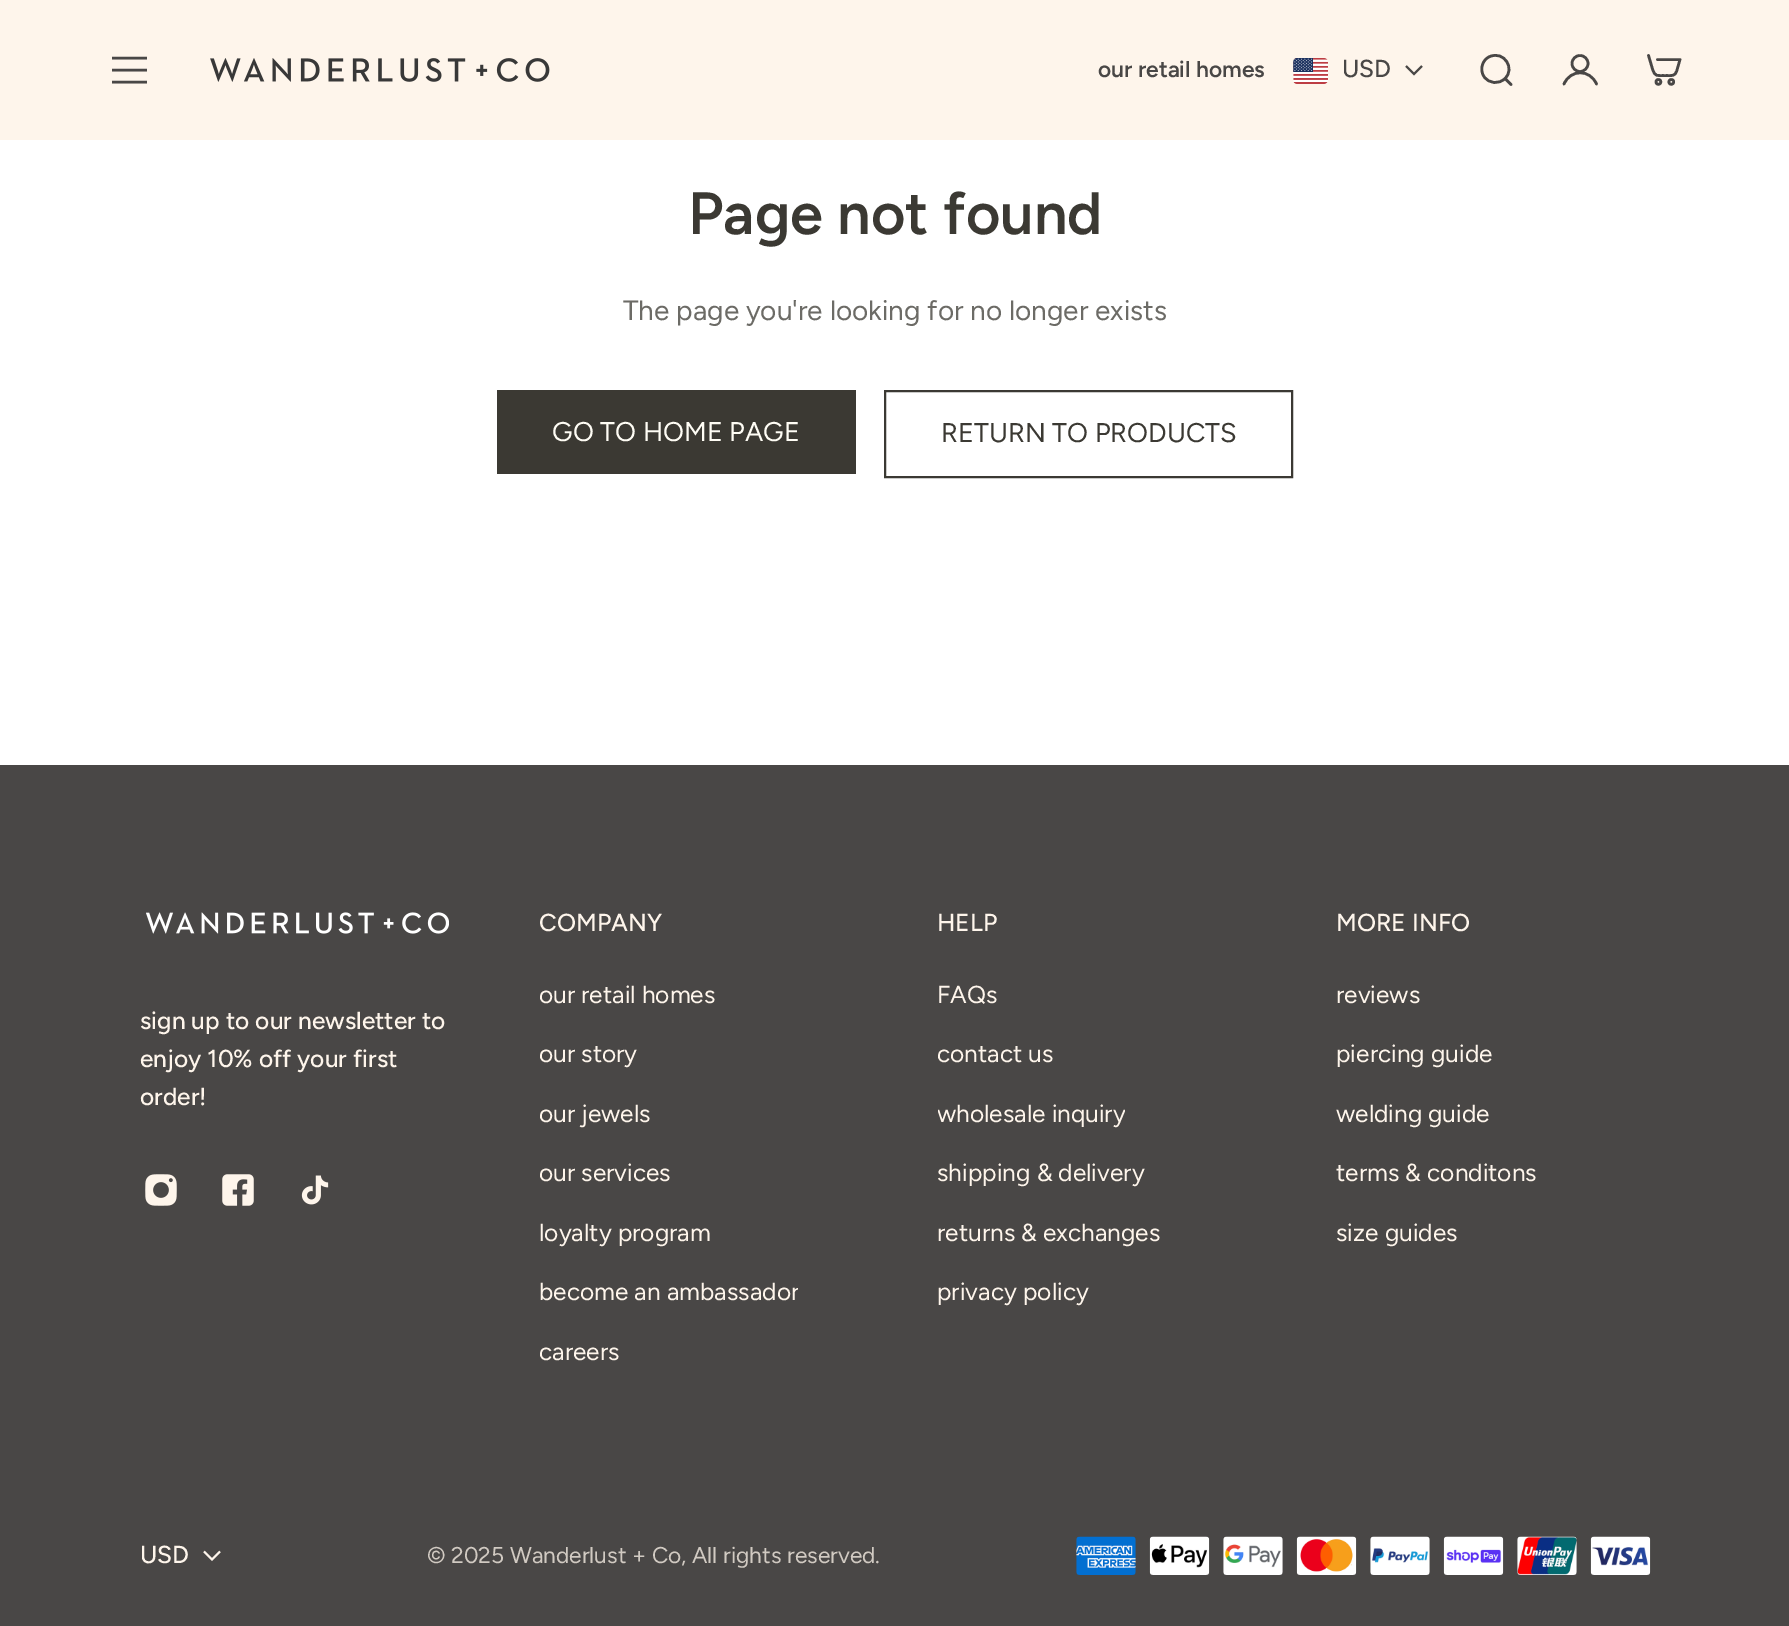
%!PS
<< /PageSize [1789 1626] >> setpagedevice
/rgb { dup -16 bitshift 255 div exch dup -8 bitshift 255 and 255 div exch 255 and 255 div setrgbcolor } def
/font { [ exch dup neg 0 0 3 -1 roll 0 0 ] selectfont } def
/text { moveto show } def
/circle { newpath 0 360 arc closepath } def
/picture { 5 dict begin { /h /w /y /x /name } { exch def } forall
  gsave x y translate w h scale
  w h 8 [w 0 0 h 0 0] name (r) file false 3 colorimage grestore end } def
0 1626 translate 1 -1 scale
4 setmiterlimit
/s1 { /Figtree-SemiBold 22.75 font 16#494746 rgb } def
/s2 { /Figtree-Medium 24.5 font 16#494746 rgb } def
/s3 { /Figtree-SemiBold 59.5 font 16#3B3933 rgb } def
/s4 { /Figtree-Regular 28 font 16#6C6B66 rgb } def
/s5 { /Figtree-Regular 27 font 16#FFFDF5 rgb } def
/s6 { /Figtree-Regular 27 font 16#3B3933 rgb } def
/s7 { /Figtree-Medium 24.5 font 16#FEF5EB rgb } def
/s8 { /Figtree-Regular 24.5 font 16#FEF5EB rgb } def
/s9 { /Figtree-Regular 22.75 font 16#D1CAC2 rgb } def
16#FFFFFF rgb
0 0 1789 1626 rectfill
16#FEF5EB rgb
0 0 1789 140 rectfill
16#494746 rgb
2.6 setlinewidth
112 58 moveto 147 58 lineto 112 70 moveto 147 70 lineto 112 82 moveto 147 82 lineto stroke
(pic1.raw) 210 58 340 24 picture
s1
(our retail homes) 1098 77 text
(pic2.raw) 1293 58 35 26 picture
s2
(USD) 1342 77 text
1.8 setlinewidth
1422 66 moveto 1414 74 lineto 1406 66 lineto stroke
2.6 setlinewidth
1 setlinecap
1 setlinejoin
1511 84.5 moveto 1505 78.5 lineto 1505 78.5 moveto 1515.5 68.5 1504 50.5 1490 56.5 curveto 1487 57.5 1484 60.5 1483 63.5 curveto 1481 68 1481.5 73 1484 76.5 curveto 1489 84 1499 84.5 1505 78.5 curveto closepath stroke
0 setlinecap
0 setlinejoin
1580 63.5 8 circle stroke
1 setlinecap
1 setlinejoin
1564 84 moveto 1570.5 69 1590 69 1596.5 84 curveto stroke
1648.5 55.5 moveto 1652.5 69 lineto 1655 77 1657 75.5 1665 75.5 curveto 1672 75.5 1675 77 1677 70 curveto 1680 59.5 lineto 1657.5 59.5 lineto stroke
0 setlinecap
0 setlinejoin
1658.4 81.9 2.4 circle stroke
1671.3 81.9 2.4 circle stroke
s3
(Page not found) 688 234 text
s4
(The page you're looking for no longer exists) 623 320 text
16#3B3933 rgb
497 390 359 84 rectfill
s5
(GO TO HOME PAGE) 552 441 text
16#3B3933 rgb
2 setlinewidth
885 391 407 86 rectstroke
(RETURN TO PRODUCTS) 941 442 text
16#494746 rgb
0 765 1789 861 rectfill
(pic3.raw) 146 912 303 22 picture
s7
(sign up to our newsletter to) 140 1029 text
(enjoy 10% off your first) 140 1067 text
(order!) 140 1105 text
(pic4.raw) 145 1174 32 32 picture
(pic5.raw) 222 1174 32 32 picture
(pic6.raw) 301 1175 28 30 picture
(COMPANY) 539 931 text
s8
(our retail homes) 539 1003 text
(our story) 539 1062 text
(our jewels) 539 1122 text
(our services) 539 1181 text
(loyalty program) 539 1241 text
gsave
539 1274 259 39 rectclip
(become an ambassador) 539 1300 text
grestore
(careers) 539 1360 text
s7
(HELP) 937 931 text
s8
(FAQs) 937 1003 text
(contact us) 937 1062 text
gsave
938 1096 187 38 rectclip
(wholesale inquiry) 937 1122 text
grestore
(shipping & delivery) 937 1181 text
(returns & exchanges) 937 1241 text
(privacy policy) 937 1300 text
s7
(MORE INFO) 1336 931 text
s8
(reviews) 1336 1003 text
(piercing guide) 1336 1062 text
(welding guide) 1336 1122 text
(terms & conditons) 1336 1181 text
(size guides) 1336 1241 text
s7
(USD) 140 1563 text
1.8 setlinewidth
220 1551.5 moveto 212 1559.5 lineto 204 1551.5 lineto stroke
s9
(© 2025 Wanderlust + Co, All rights reserved.) 427 1563 text
(pic7.raw) 1076 1536 60 39 picture
(pic8.raw) 1149 1536 61 39 picture
(pic9.raw) 1223 1536 60 39 picture
(pic10.raw) 1296 1536 61 39 picture
(pic11.raw) 1370 1536 60 39 picture
(pic12.raw) 1443 1536 61 39 picture
(pic13.raw) 1517 1536 60 39 picture
(pic14.raw) 1590 1536 61 39 picture
showpage
